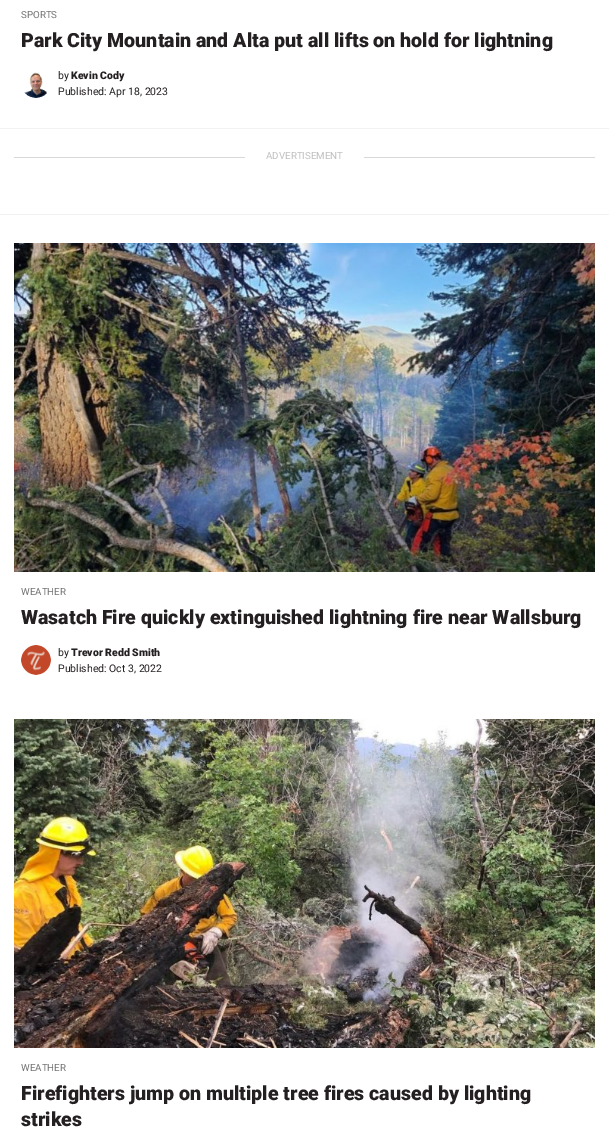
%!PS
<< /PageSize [609 1140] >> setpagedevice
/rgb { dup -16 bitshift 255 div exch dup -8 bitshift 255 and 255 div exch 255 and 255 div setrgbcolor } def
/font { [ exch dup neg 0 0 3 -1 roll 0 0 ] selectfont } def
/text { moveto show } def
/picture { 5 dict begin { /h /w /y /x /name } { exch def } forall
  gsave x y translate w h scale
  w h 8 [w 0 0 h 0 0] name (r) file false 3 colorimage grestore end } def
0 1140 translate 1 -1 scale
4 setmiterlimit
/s1 { /Roboto-Regular 9.75 font 16#737272 rgb } def
/s2 { /Roboto-Black 19.6 font 16#241F21 rgb } def
/s3 { /Roboto-Regular 10.5 font 16#241F21 rgb } def
/s4 { /Roboto-Black 10.5 font 16#241F21 rgb } def
/s5 { /Roboto-Regular 9.75 font 16#BFBFBF rgb } def
16#FFFFFF rgb
0 0 609 1140 rectfill
s1
(SPORTS) 21 18 text
s2
(Park City Mountain and Alta put all lifts on hold for lightning) 21 47 text
(pic1.raw) 24 72 23 26 picture
s3
(by) 58 79 text
s4
(Kevin Cody) 71 79 text
s3
(Published: Apr 18, 2023) 58 95 text
16#F1F3F3 rgb
0 128 609 1 rectfill
0 214 609 1 rectfill
16#D9D8D8 rgb
14 157 581 1 rectfill
16#FFFFFF rgb
245 157 119 1 rectfill
s5
(ADVERTISEMENT) 266 159 text
(pic2.raw) 14 243 581 329 picture
s1
(WEATHER) 21 595 text
s2
(Wasatch Fire quickly extinguished lightning fire near Wallsburg) 21 624 text
(pic3.raw) 21 645 30 30 picture
s3
(by) 58 656 text
s4
(Trevor Redd Smith) 71 656 text
s3
(Published: Oct 3, 2022) 58 672 text
(pic4.raw) 14 719 581 329 picture
s1
(WEATHER) 21 1071 text
s2
(Firefighters jump on multiple tree fires caused by lighting) 21 1100 text
(strikes) 21 1126 text
showpage
